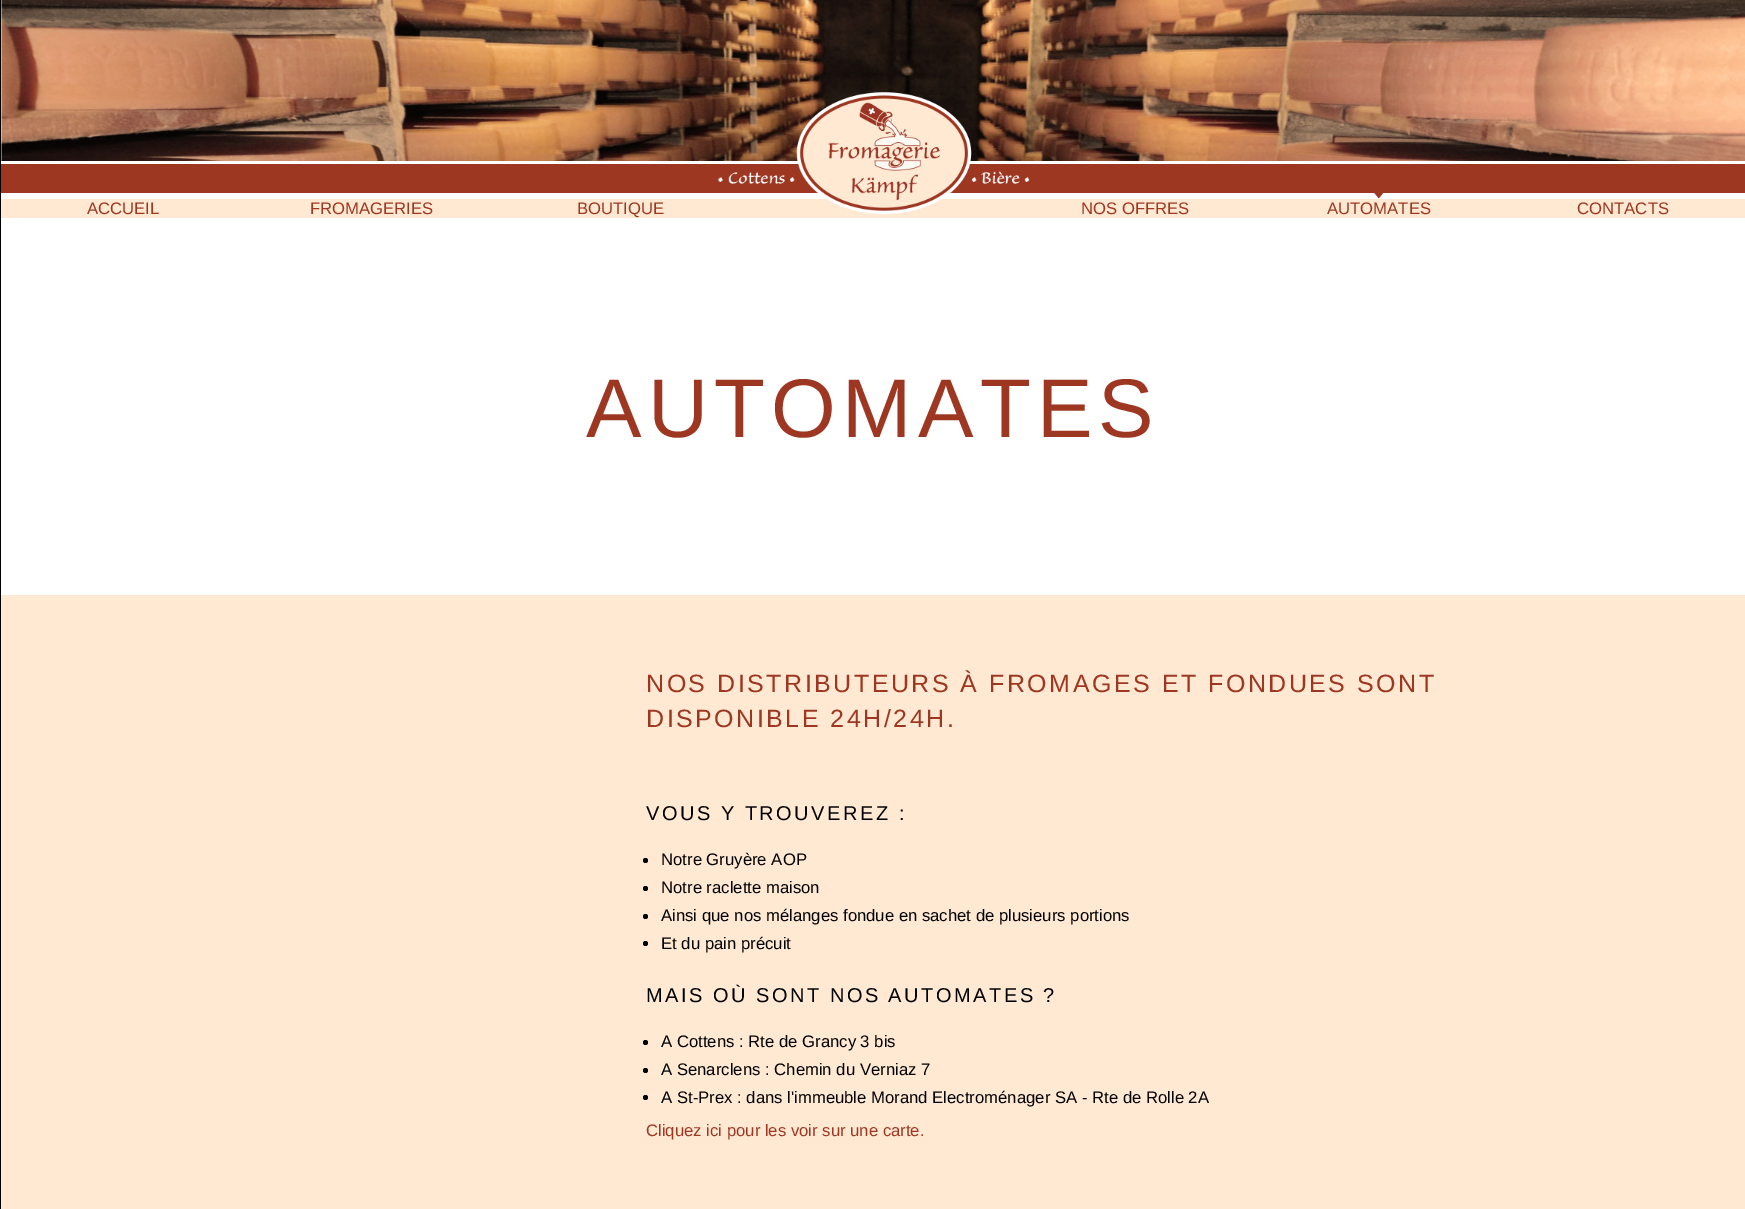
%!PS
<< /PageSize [1745 1209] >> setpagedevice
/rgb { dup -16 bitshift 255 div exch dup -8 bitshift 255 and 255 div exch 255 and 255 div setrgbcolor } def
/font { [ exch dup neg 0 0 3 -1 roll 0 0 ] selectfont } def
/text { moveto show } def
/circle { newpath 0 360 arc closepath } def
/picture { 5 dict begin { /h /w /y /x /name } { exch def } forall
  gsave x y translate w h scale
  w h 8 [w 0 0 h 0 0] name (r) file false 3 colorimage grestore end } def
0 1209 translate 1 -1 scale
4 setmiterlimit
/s1 { /LiberationSans-Regular 16.7 font 16#9E3722 rgb } def
/s2 { /LiberationSans-Regular 16.7 font 16#000000 rgb } def
16#FFFFFF rgb
0 0 1745 1209 rectfill
16#000000 rgb
0 0 1 1209 rectfill
(pic1.raw) 1 0 1744 161 picture
16#9E3722 rgb
1 164 1744 29 rectfill
16#FFE9D3 rgb
1 199 1744 19 rectfill
(pic2.raw) 718 92 312 122 picture
s1
(ACCUEIL) 87 214 text
(FROMAGERIES) 310 214 text
(BOUTIQUE) 577 214 text
(NOS OFFRES) 1081 214 text
(pic3.raw) 1374 193 10 6 picture
(AUTOMATES) 1327 214 text
(CONTACTS) 1577 214 text
/LiberationSans-Regular 83.25 font
586 437 moveto 6.25 0 (AUTOMATES) ashow
16#FFE9D3 rgb
1 595 1744 614 rectfill
/LiberationSans-Regular 25 font
16#9E3722 rgb
646 692 moveto 2.5 0 (NOS DISTRIBUTEURS À FROMAGES ET FONDUES SONT) ashow
646 727 moveto 2.5 0 (DISPONIBLE 24H/24H.) ashow
/LiberationSans-Regular 20 font
16#000000 rgb
646 820 moveto 2.5 0 (VOUS Y TROUVEREZ :) ashow
645.5 860.5 2.5 circle fill
s2
(Notre Gruyère AOP) 661 865 text
645.5 888.5 2.5 circle fill
(Notre raclette maison) 661 893 text
645.5 916.5 2.5 circle fill
(Ainsi que nos mélanges fondue en sachet de plusieurs portions) 661 921 text
645.5 943.5 2.5 circle fill
(Et du pain précuit) 661 949 text
/LiberationSans-Regular 20 font
646 1002 moveto 2.5 0 (MAIS OÙ SONT NOS AUTOMATES ?) ashow
645.5 1042.5 2.5 circle fill
s2
(A Cottens : Rte de Grancy 3 bis) 661 1047 text
645.5 1070.5 2.5 circle fill
(A Senarclens : Chemin du Verniaz 7) 661 1075 text
645.5 1097.5 2.5 circle fill
(A St-Prex : dans l'immeuble Morand Electroménager SA - Rte de Rolle 2A) 661 1103 text
s1
(Cliquez ici pour les voir sur une carte.) 646 1136 text
showpage
